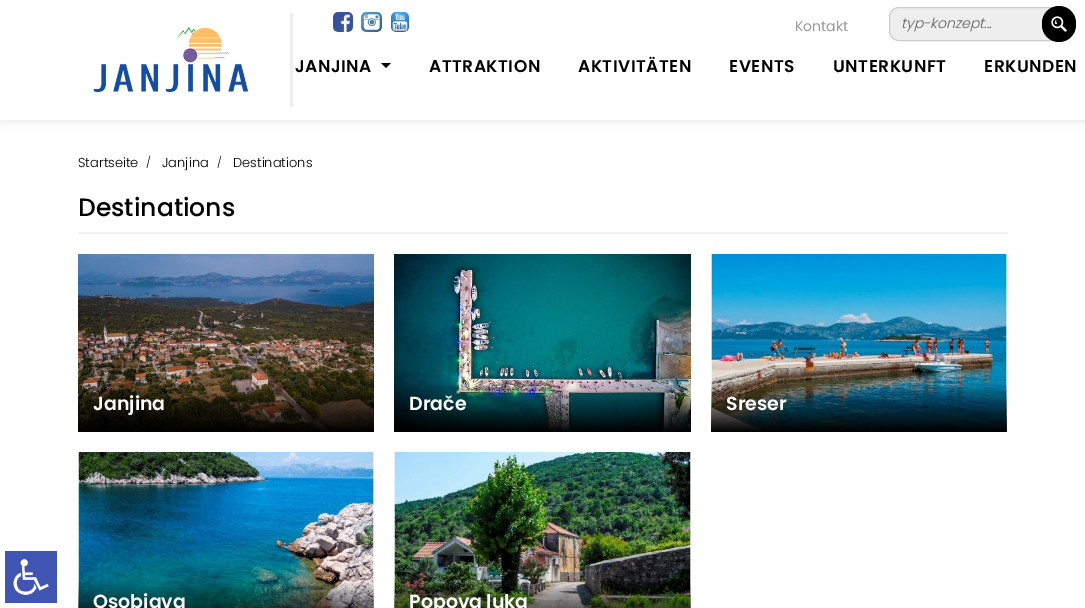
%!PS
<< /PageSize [1085 608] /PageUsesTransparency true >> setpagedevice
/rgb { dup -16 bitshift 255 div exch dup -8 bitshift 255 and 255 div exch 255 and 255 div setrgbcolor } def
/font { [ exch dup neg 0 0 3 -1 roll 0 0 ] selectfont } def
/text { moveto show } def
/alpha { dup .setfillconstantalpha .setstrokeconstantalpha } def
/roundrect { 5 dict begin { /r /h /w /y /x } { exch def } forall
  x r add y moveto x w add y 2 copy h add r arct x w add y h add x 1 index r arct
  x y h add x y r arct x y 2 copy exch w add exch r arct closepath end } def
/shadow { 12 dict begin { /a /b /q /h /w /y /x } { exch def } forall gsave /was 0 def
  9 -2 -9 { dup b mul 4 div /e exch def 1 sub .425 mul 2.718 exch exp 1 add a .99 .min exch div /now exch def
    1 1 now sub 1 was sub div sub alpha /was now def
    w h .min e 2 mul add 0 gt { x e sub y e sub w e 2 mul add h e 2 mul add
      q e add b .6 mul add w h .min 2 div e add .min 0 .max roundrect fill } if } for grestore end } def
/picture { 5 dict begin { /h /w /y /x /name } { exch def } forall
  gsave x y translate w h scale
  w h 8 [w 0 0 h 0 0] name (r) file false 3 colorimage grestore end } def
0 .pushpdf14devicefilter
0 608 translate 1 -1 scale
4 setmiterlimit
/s1 { /Poppins-Regular 14 font 16#9B9999 rgb } def
/s2 { /Poppins-LightItalic 14 font 16#636363 rgb } def
/s3 { /Poppins-Light 13 font 16#000000 rgb } def
/s4 { /Poppins-Light 11 font 16#000000 rgb } def
/s5 { /Poppins-Medium 25 font 16#000000 rgb } def
/s6 { /Poppins-SemiBold 19 font 16#FFFFFF rgb } def
16#FFFFFF rgb
0 0 1085 608 rectfill
16#000000 rgb
0 1 1085 120 0 5 0.1 shadow
16#FFFFFF rgb
0 0 1085 120 rectfill
16#EEEEEE rgb
290 13 3 94 rectfill
(pic1.raw) 93 27 156 66 picture
(pic2.raw) 333 12 20 20 picture
(pic3.raw) 361 12 21 20 picture
(pic4.raw) 391 12 18 20 picture
s1
(Kontakt) 795 31 text
16#EEEEEE rgb
889.5 7.5 173 33 9.5 roundrect gsave fill grestore
16#CCCCCC rgb
stroke
s2
(typ-konzept...) 901 28 text
16#000000 rgb
1042 6 34 36 17 roundrect fill
(pic5.raw) 1051 16 16 16 picture
/Poppins-SemiBold 17 font
295 72 moveto 0.5 0 (JANJINA) ashow
381 63 moveto 391 63 lineto 386 68 lineto closepath fill
429 72 moveto 0.5 0 (ATTRAKTION) ashow
578 72 moveto 0.5 0 (AKTIVITÄTEN) ashow
729 72 moveto 0.5 0 (EVENTS) ashow
833 72 moveto 0.5 0 (UNTERKUNFT) ashow
984 72 moveto 0.5 0 (ERKUNDEN) ashow
(pic6.raw) 5 551 52 52 picture
s3
(Startseite) 78 167 text
s4
(/) 146 166 text
s3
(Janjina) 162 167 text
s4
(/) 217 166 text
s3
(Destinations) 233 167 text
s5
(Destinations) 78 216 text
16#F1F1F1 rgb
78 232 930 2 rectfill
(pic7.raw) 78 254 296 178 picture
s6
(Janjina) 93 410 text
(pic8.raw) 394 254 297 178 picture
(Drače) 409 410 text
(pic9.raw) 711 254 296 178 picture
(Sreser) 726 410 text
(pic10.raw) 78 452 296 156 picture
(Osobjava) 93 608 text
(pic11.raw) 394 452 297 156 picture
(Popova luka) 409 608 text
.poppdf14devicefilter showpage
